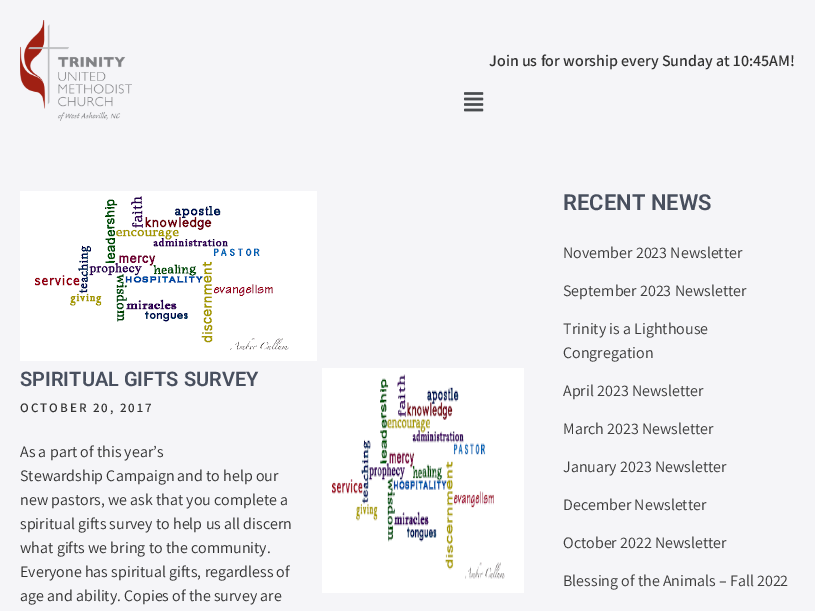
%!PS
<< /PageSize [815 611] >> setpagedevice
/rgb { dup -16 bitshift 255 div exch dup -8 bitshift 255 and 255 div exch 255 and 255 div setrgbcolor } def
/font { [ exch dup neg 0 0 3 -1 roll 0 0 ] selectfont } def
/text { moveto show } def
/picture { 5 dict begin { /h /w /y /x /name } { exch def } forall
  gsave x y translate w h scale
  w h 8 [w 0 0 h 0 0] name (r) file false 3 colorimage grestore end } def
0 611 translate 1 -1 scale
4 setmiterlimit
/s1 { /Assistant-SemiBold 16 font 16#333333 rgb } def
/s2 { /Roboto-SemiBold 20 font 16#484F5E rgb } def
/s3 { /Assistant-Regular 16 font 16#333333 rgb } def
/s4 { /Roboto-SemiBold 22 font 16#484F5E rgb } def
/s5 { /Assistant-Regular 16 font 16#3B3B3B rgb } def
16#F5F5F8 rgb
0 0 815 611 rectfill
(pic1.raw) 20 20 112 101 picture
s1
(Join us for worship every Sunday at 10:45AM!) 489 66 text
(pic2.raw) 464 92 20 20 picture
(pic3.raw) 20 191 297 170 picture
s2
(SPIRITUAL GIFTS SURVEY) 20 386 text
(pic4.raw) 322 368 202 225 picture
/Assistant-SemiBold 13 font
16#333333 rgb
20 412 moveto 2 0 (OCTOBER 20, 2017) ashow
s3
(As a part of this year’s) 20 457 text
(Stewardship Campaign and to help our) 20 481 text
(new pastors, we ask that you complete a) 20 505 text
(spiritual gifts survey to help us all discern) 20 529 text
(what gifts we bring to the community.) 20 553 text
(Everyone has spiritual gifts, regardless of) 20 577 text
(age and ability. Copies of the survey are) 20 601 text
s4
(RECENT NEWS) 563 210 text
s5
(November 2023 Newsletter) 563 258 text
(September 2023 Newsletter) 563 296 text
(Trinity is a Lighthouse) 563 334 text
(Congregation) 563 358 text
(April 2023 Newsletter) 563 396 text
(March 2023 Newsletter) 563 434 text
(January 2023 Newsletter) 563 472 text
(December Newsletter) 563 510 text
(October 2022 Newsletter) 563 548 text
(Blessing of the Animals – Fall 2022) 563 586 text
showpage
